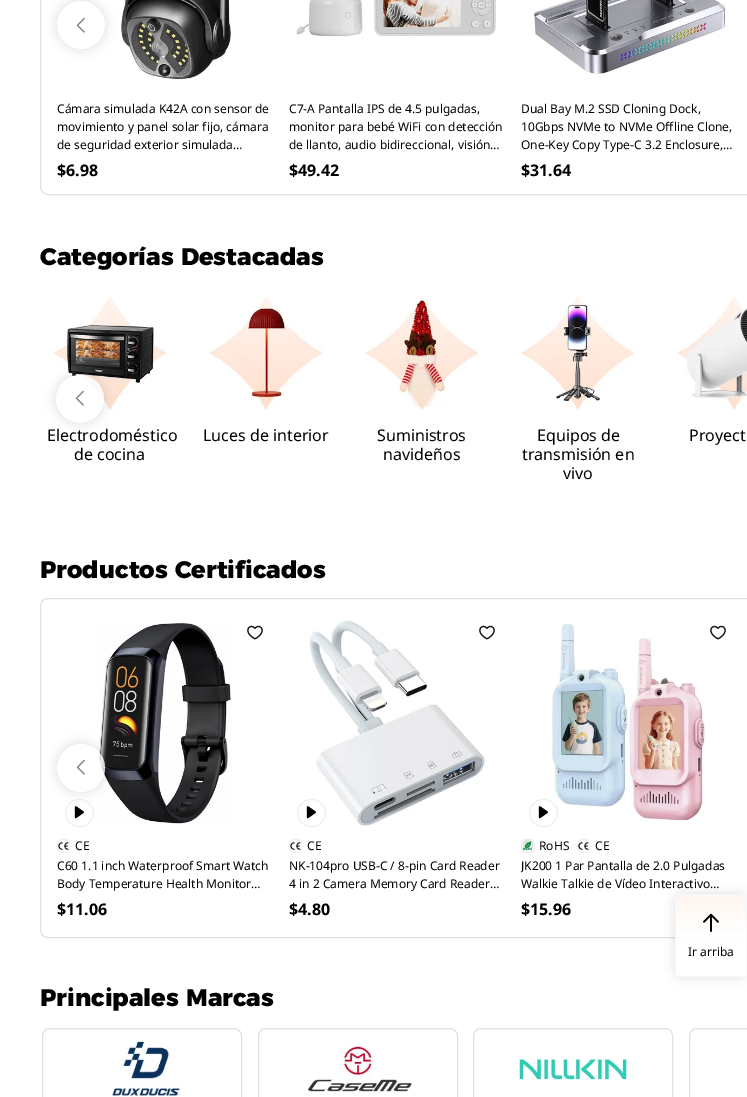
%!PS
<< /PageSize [747 1097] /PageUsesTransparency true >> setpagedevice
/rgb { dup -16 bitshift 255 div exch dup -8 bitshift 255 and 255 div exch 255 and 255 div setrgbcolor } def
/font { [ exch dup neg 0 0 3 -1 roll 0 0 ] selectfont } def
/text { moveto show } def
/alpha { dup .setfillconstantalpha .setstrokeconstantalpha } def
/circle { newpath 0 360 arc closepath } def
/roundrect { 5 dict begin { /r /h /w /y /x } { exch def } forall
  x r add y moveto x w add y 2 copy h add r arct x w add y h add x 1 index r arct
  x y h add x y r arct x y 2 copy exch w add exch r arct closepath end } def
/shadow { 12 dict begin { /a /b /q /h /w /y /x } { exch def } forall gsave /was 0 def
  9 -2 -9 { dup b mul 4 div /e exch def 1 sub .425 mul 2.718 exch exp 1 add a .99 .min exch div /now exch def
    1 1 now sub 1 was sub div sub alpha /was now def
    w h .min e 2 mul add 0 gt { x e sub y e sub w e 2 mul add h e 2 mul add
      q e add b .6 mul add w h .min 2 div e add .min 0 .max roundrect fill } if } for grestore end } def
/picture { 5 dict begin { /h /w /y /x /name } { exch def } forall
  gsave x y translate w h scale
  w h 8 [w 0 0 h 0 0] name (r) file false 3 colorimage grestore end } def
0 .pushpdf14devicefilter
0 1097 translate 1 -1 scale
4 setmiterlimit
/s1 { /NotoSans-Regular 12 font 16#000000 rgb } def
/s2 { /NotoSans-Bold 16 font 16#000000 rgb } def
/s3 { /Montserrat-ExtraBold 24 font 16#000000 rgb } def
/s4 { /NotoSans-Regular 16 font 16#000000 rgb } def
16#FFFFFF rgb
0 0 747 1097 rectfill
16#E0E0E0 rgb
40.5 -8.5 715 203 7.5 roundrect stroke
(pic2.raw) 120 0 111 80 picture
gsave
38 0 moveto 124 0 lineto 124 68 lineto 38 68 lineto closepath 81 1 moveto 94.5 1 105 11.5 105 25 curveto 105 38.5 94.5 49 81 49 curveto 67.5 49 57 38.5 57 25 curveto 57 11.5 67.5 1 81 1 curveto closepath eoclip newpath
16#000000 rgb
57 1 48 48 24 6 0.12 shadow
grestore
0.8 alpha
16#FFFFFF rgb
81 25 24 circle fill
1 alpha
(pic1.raw) 76 17 9 16 picture
s1
(Cámara simulada K42A con sensor de) 57 113 text
(movimiento y panel solar fijo, cámara) 57 131 text
(de seguridad exterior simulada…) 57 149 text
s2
($6.98) 57 176 text
(pic3.raw) 296 0 200 37 picture
s1
(C7-A Pantalla IPS de 4.5 pulgadas,) 289 113 text
(monitor para bebé WiFi con detección) 289 131 text
(de llanto, audio bidireccional, visión…) 289 149 text
s2
($49.42) 289 176 text
(pic4.raw) 534 0 192 74 picture
s1
(Dual Bay M.2 SSD Cloning Dock,) 521 113 text
(10Gbps NVMe to NVMe Offline Clone,) 521 131 text
(One-Key Copy Type-C 3.2 Enclosure,…) 521 149 text
s2
($31.64) 521 176 text
s3
(Categorías Destacadas) 40 265 text
(pic5.raw) 53 296 114 114 picture
gsave
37 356 moveto 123 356 lineto 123 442 lineto 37 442 lineto closepath 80 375 moveto 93.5 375 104 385.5 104 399 curveto 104 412.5 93.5 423 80 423 curveto 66.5 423 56 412.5 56 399 curveto 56 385.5 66.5 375 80 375 curveto closepath eoclip newpath
56 375 48 48 24 6 0.12 shadow
grestore
0.8 alpha
16#FFFFFF rgb
80 399 24 circle fill
1 alpha
(pic1.raw) 75 390 9 16 picture
s4
(Electrodoméstico) 47 441 text
(de cocina) 74 460 text
(pic6.raw) 209 296 114 114 picture
(Luces de interior) 203 441 text
(pic7.raw) 365 296 114 114 picture
(Suministros) 377 441 text
(navideños) 383 460 text
(pic8.raw) 521 296 114 114 picture
(Equipos de) 537 441 text
(transmisión en) 522 460 text
(vivo) 563 479 text
(pic9.raw) 677 296 70 114 picture
(Proyect) 689 441 text
s3
(Productos Certificados) 40 578 text
16#E0E0E0 rgb
40.5 598.5 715 339 7.5 roundrect stroke
16#EEEEEE rgb
65.5 799.5 28 27 13.5 roundrect stroke
(pic10.raw) 74 806 10 13 picture
(pic11.raw) 99 623 133 202 picture
gsave
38 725 moveto 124 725 lineto 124 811 lineto 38 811 lineto closepath 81 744 moveto 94.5 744 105 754.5 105 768 curveto 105 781.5 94.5 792 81 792 curveto 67.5 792 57 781.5 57 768 curveto 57 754.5 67.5 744 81 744 curveto closepath eoclip newpath
16#000000 rgb
57 744 48 48 24 6 0.12 shadow
grestore
0.8 alpha
16#FFFFFF rgb
81 768 24 circle fill
1 alpha
(pic1.raw) 76 759 9 16 picture
(pic12.raw) 247 625 16 15 picture
(pic13.raw) 57 839 14 14 picture
s1
(CE) 75 850 text
(C60 1.1 inch Waterproof Smart Watch) 57 870 text
(Body Temperature Health Monitor…) 57 888 text
s2
($11.06) 57 915 text
(pic14.raw) 309 619 177 208 picture
16#EEEEEE rgb
297.5 799.5 28 27 13.5 roundrect stroke
(pic10.raw) 306 806 10 13 picture
(pic12.raw) 479 625 16 15 picture
(pic13.raw) 289 839 14 14 picture
s1
(CE) 307 850 text
(NK-104pro USB-C / 8-pin Card Reader) 289 870 text
(4 in 2 Camera Memory Card Reader…) 289 888 text
s2
($4.80) 289 915 text
(pic15.raw) 551 623 155 199 picture
16#EEEEEE rgb
529.5 799.5 28 27 13.5 roundrect stroke
(pic10.raw) 538 806 10 13 picture
(pic12.raw) 710 625 16 15 picture
(pic16.raw) 521 839 14 14 picture
s1
(RoHS) 539 850 text
(pic17.raw) 577 839 14 14 picture
(CE) 595 850 text
gsave
521 857 215 36 rectclip
(JK200 1 Par Pantalla de 2.0 Pulgadas) 521 870 text
grestore
(Walkie Talkie de Vídeo Interactivo…) 521 888 text
s2
($15.96) 521 915 text
gsave
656 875 moveto 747 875 lineto 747 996 lineto 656 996 lineto closepath 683 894 moveto 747 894 lineto 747 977 lineto 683 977 lineto 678.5 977 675 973.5 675 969 curveto 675 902 lineto 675 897.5 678.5 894 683 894 curveto closepath eoclip newpath
675 894 72 83 8 6 0.12 shadow
grestore
gsave
683 894 moveto 747 894 lineto 747 977 lineto 683 977 lineto 678.5 977 675 973.5 675 969 curveto 675 902 lineto 675 897.5 678.5 894 683 894 curveto closepath clip newpath
0.9 alpha
gsave 675 895 moveto 746 895 lineto 746 976 lineto 675 976 lineto closepath clip newpath
<< /ShadingType 2 /ColorSpace /DeviceRGB /Coords [711 895 711 976] /Extend [true true] /Function << /FunctionType 3 /Domain [0 1] /Functions [<< /FunctionType 2 /Domain [0 1] /C0 [1 0.957 0.929] /C1 [1 1 1] /N 1 >> << /FunctionType 2 /Domain [0 1] /C0 [1 1 1] /C1 [1 1 1] /N 1 >>] /Bounds [0.48] /Encode [0 1 0 1] >> >> shfill grestore
grestore
16#F8F8F8 rgb
683 894.5 moveto 746.5 894.5 lineto 746.5 976.5 lineto 683 976.5 lineto 679 976.5 675.5 973 675.5 969 curveto 675.5 902 lineto 675.5 898 679 894.5 683 894.5 curveto closepath stroke
(pic18.raw) 703 913 16 19 picture
s1
(Ir arriba) 688 956 text
s3
(Principales Marcas) 40 1006 text
16#E0E0E0 rgb
42.5 1028.5 199 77 7.5 roundrect stroke
(pic19.raw) 111 1041 71 56 picture
258.5 1028.5 199 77 7.5 roundrect stroke
(pic20.raw) 308 1046 104 48 picture
473.5 1028.5 199 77 7.5 roundrect stroke
(pic21.raw) 519 1056 108 25 picture
689.5 1028.5 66 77 7.5 roundrect stroke
.poppdf14devicefilter showpage
